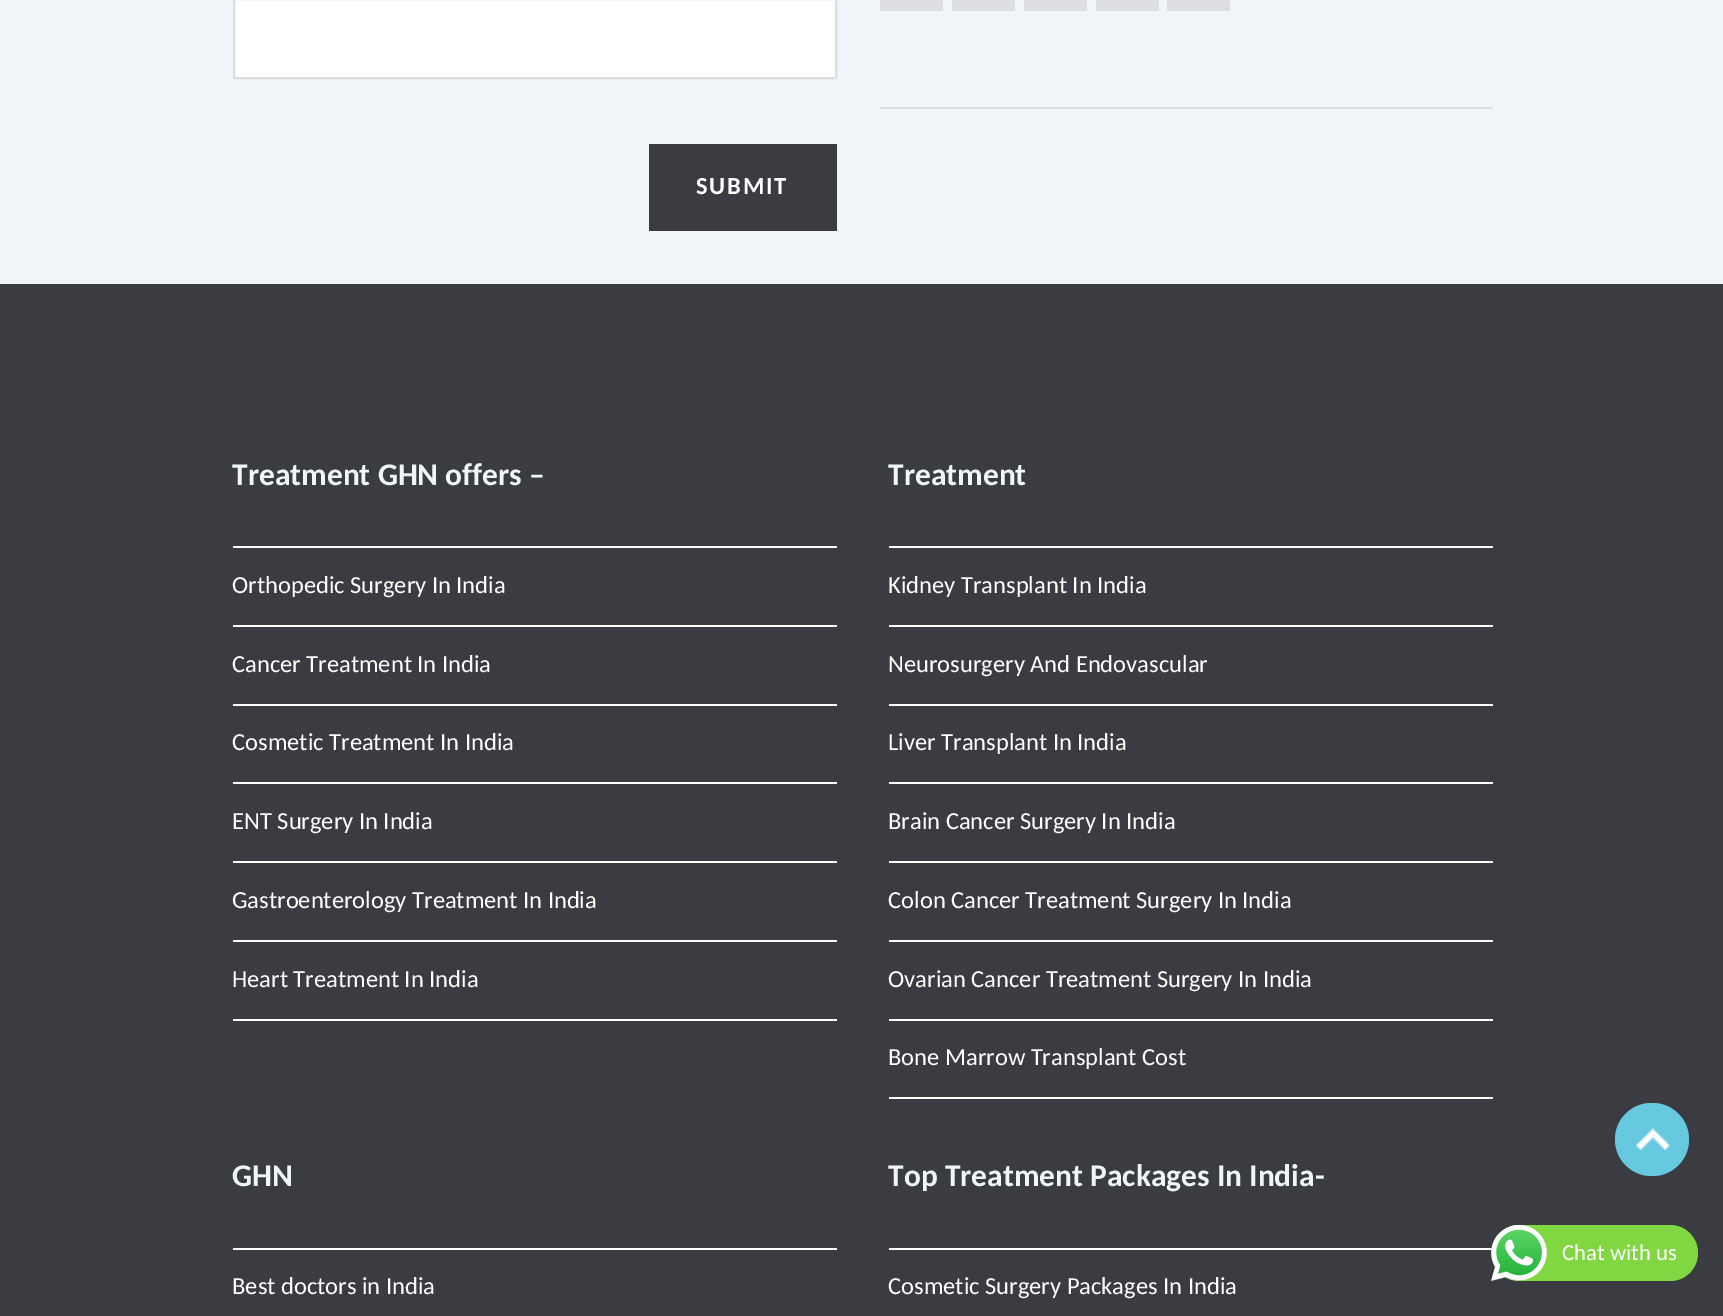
%!PS
<< /PageSize [1723 1316] >> setpagedevice
/rgb { dup -16 bitshift 255 div exch dup -8 bitshift 255 and 255 div exch 255 and 255 div setrgbcolor } def
/font { [ exch dup neg 0 0 3 -1 roll 0 0 ] selectfont } def
/text { moveto show } def
/roundrect { 5 dict begin { /r /h /w /y /x } { exch def } forall
  x r add y moveto x w add y 2 copy h add r arct x w add y h add x 1 index r arct
  x y h add x y r arct x y 2 copy exch w add exch r arct closepath end } def
/picture { 5 dict begin { /h /w /y /x /name } { exch def } forall
  gsave x y translate w h scale
  w h 8 [w 0 0 h 0 0] name (r) file false 3 colorimage grestore end } def
0 1316 translate 1 -1 scale
4 setmiterlimit
/s1 { /Carlito-Bold 31.5 font 16#F0F5F7 rgb } def
/s2 { /Carlito-Regular 24.5 font 16#FFFFFF rgb } def
/s3 { /Carlito-Regular 22.75 font 16#FFFFFF rgb } def
16#F0F5F7 rgb
0 0 1723 1316 rectfill
16#DCDEE4 rgb
880 107 613 2 rectfill
880 0 63 11 rectfill
952 0 63 11 rectfill
1024 0 63 11 rectfill
1096 0 63 11 rectfill
1167 0 63 11 rectfill
16#FFFFFF rgb
234 -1 moveto 836 -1 lineto 836 78 lineto 234 78 lineto closepath gsave fill grestore
16#DCDEE4 rgb
2 setlinewidth
stroke
16#3A3C41 rgb
649 144 188 87 rectfill
/Carlito-Bold 24.5 font
16#FFFFFF rgb
696 194 moveto 1.75 0 (SUBMIT) ashow
16#3A3C41 rgb
0 284 1723 1032 rectfill
s1
(Treatment GHN offers –) 232 485 text
16#FFFFFF rgb
233 546 604 2 rectfill
233 625 604 2 rectfill
s2
(Orthopedic Surgery In India) 232 593 text
233 704 604 2 rectfill
(Cancer Treatment In India) 232 672 text
233 782 604 2 rectfill
(Cosmetic Treatment In India) 232 750 text
233 861 604 2 rectfill
(ENT Surgery In India) 232 829 text
233 940 604 2 rectfill
(Gastroenterology Treatment In India) 232 908 text
233 1019 604 2 rectfill
(Heart Treatment In India) 232 987 text
s1
(Treatment) 888 485 text
16#FFFFFF rgb
889 546 604 2 rectfill
889 625 604 2 rectfill
s2
(Kidney Transplant In India) 888 593 text
889 704 604 2 rectfill
(Neurosurgery And Endovascular) 888 672 text
889 782 604 2 rectfill
(Liver Transplant In India) 888 750 text
889 861 604 2 rectfill
(Brain Cancer Surgery In India) 888 829 text
889 940 604 2 rectfill
(Colon Cancer Treatment Surgery In India) 888 908 text
889 1019 604 2 rectfill
(Ovarian Cancer Treatment Surgery In India) 888 987 text
889 1097 604 2 rectfill
(Bone Marrow Transplant Cost) 888 1065 text
s1
(GHN) 232 1186 text
16#FFFFFF rgb
233 1248 604 2 rectfill
s2
(Best doctors in India) 232 1294 text
s1
(Top Treatment Packages In India-) 888 1186 text
16#FFFFFF rgb
889 1248 604 2 rectfill
s2
(Cosmetic Surgery Packages In India) 888 1294 text
16#67C9E0 rgb
1615 1103 74 73 36.5 roundrect fill
(pic1.raw) 1636 1128 35 23 picture
16#81D742 rgb
1491 1225 207 56 28 roundrect fill
(pic2.raw) 1491 1225 56 56 picture
s3
(Chat with us) 1562 1260 text
showpage
